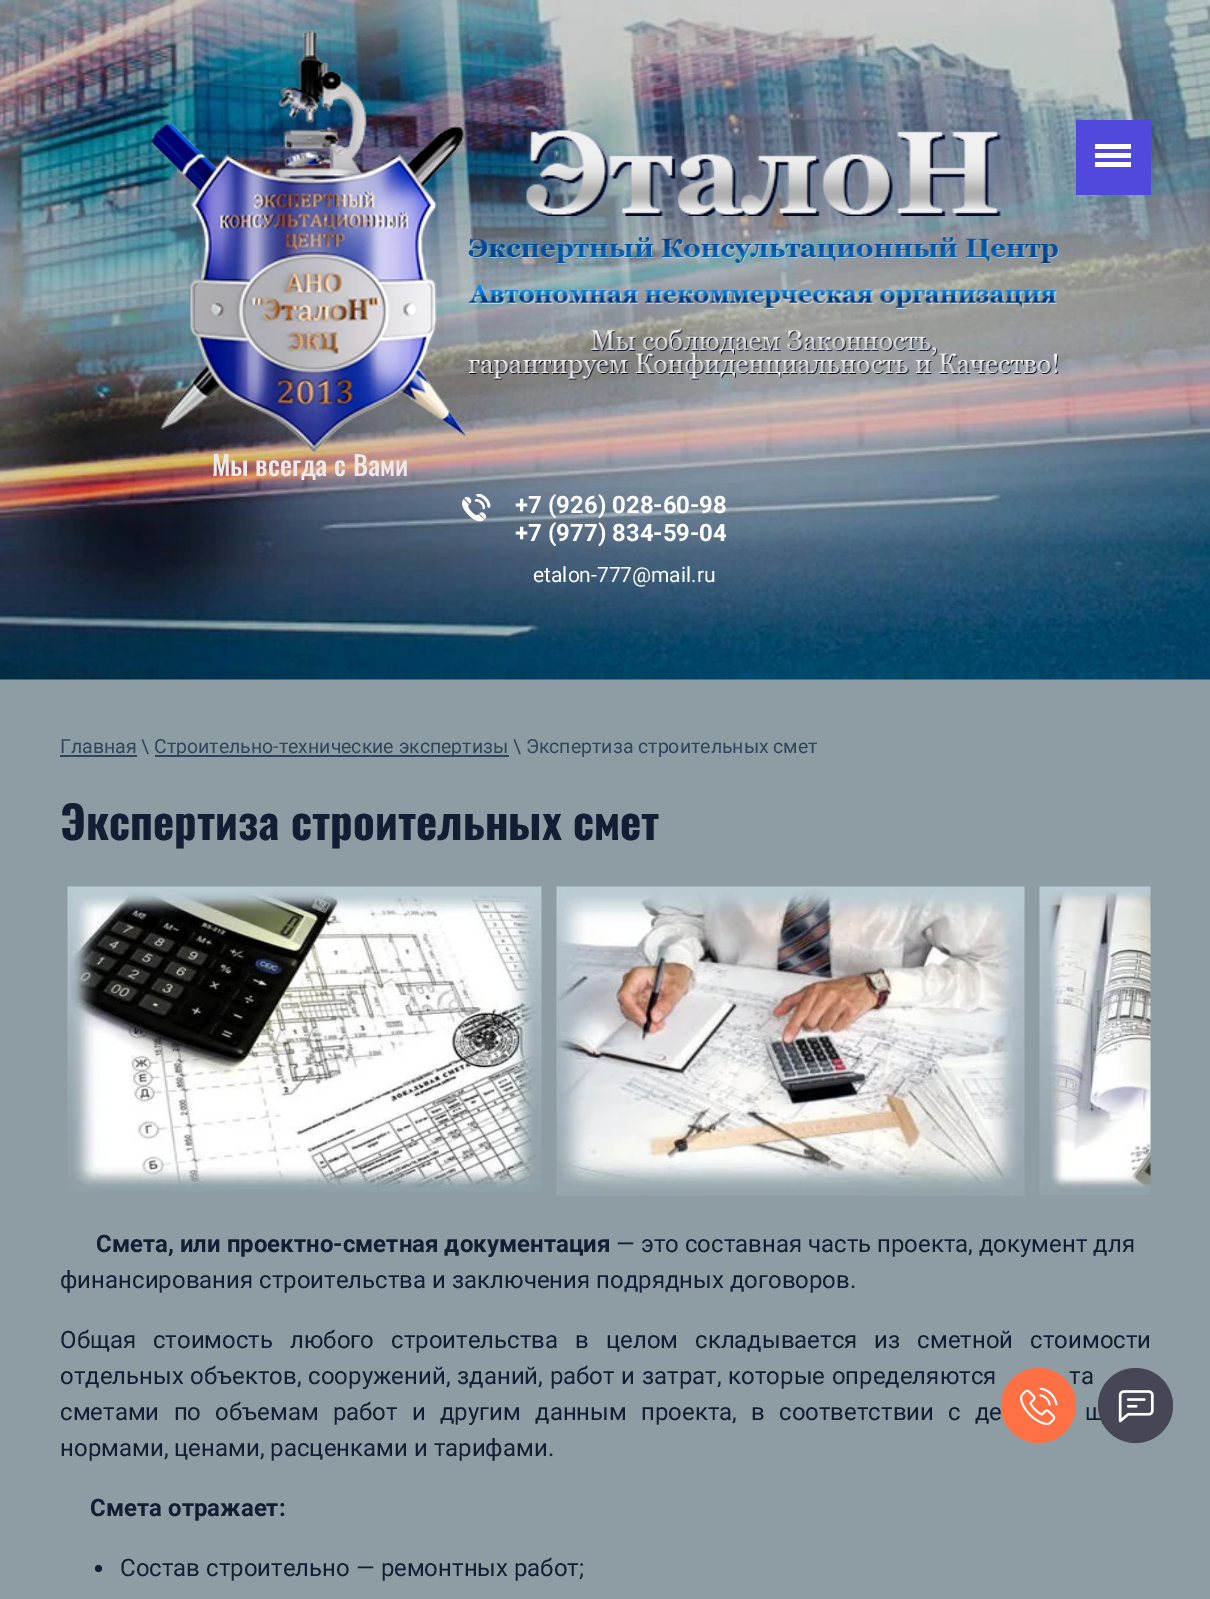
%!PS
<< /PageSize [1210 1599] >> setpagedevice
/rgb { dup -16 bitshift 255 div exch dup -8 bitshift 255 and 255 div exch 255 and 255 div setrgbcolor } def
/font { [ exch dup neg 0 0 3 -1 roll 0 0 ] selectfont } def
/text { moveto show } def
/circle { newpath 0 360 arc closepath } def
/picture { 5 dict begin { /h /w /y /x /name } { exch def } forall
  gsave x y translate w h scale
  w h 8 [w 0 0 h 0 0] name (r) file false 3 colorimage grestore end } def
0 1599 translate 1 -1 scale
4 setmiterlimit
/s1 { /Oswald-Medium 27 font 16#EBE9EC rgb } def
/s2 { /Roboto-Bold 24 font 16#FFFFFF rgb } def
/s3 { /Roboto-Regular 21 font 16#FFFFFF rgb } def
/s4 { /Roboto-Regular 19.5 font 16#31445C rgb } def
/s5 { /Oswald-Bold 45 font 16#131E35 rgb } def
/s6 { /Roboto-Bold 24 font 16#131E35 rgb } def
/s7 { /Roboto-Regular 24 font 16#131E35 rgb } def
16#8E9DA4 rgb
0 0 1210 1599 rectfill
(pic1.raw) 0 0 1210 680 picture
16#5149DB rgb
1076 120 75 75 rectfill
16#FFFFFF rgb
1095 144 36 5 rectfill
1095 153 36 5 rectfill
1095 162 36 5 rectfill
(pic2.raw) 526 130 475 86 picture
(pic3.raw) 468 237 591 27 picture
(pic4.raw) 468 285 590 24 picture
(pic5.raw) 468 328 591 52 picture
(pic6.raw) 151 30 316 423 picture
s1
(Мы всегда с Вами) 212 476 text
(pic7.raw) 462 494 29 28 picture
s2
(+7 \(926\) 028-60-98) 515 513 text
(+7 \(977\) 834-59-04) 515 541 text
s3
(etalon-777@mail.ru) 533 582 text
s4
(Главная \\) 60 753 text
60 755 77 2 rectfill
155 755 354 2 rectfill
(Строительно-технические экспертизы \\ Экспертиза строительных смет) 154 753 text
s5
(Экспертиза строительных смет) 60 840 text
(pic8.raw) 67 886 475 306 picture
(pic9.raw) 556 886 469 310 picture
(pic10.raw) 1039 886 112 309 picture
s6
(Смета, или проектно-сметная документация) 96 1252 text
s7
(— это составная часть проекта, документ для) 616 1252 text
(финансирования строительства и заключения подрядных договоров.) 60 1288 text
60 1348 moveto 11 0 32 (Общая стоимость любого строительства в целом складывается из сметной стоимости) widthshow
60 1384 moveto 0.75 0 32 (отдельных объектов, сооружений, зданий, работ и затрат, которые определяются) widthshow
1069 1384 moveto 0.75 0 32 (та) widthshow
60 1420 moveto 8.25 0 32 (сметами по объемам работ и другим данным проекта, в соответствии с де) widthshow
1085 1420 moveto 8.25 0 32 (щ) widthshow
(нормами, ценами, расценками и тарифами.) 60 1456 text
s6
(Смета отражает:) 90 1516 text
98.5 1568.5 3.5 circle fill
s7
(Состав строительно — ремонтных работ;) 120 1576 text
16#FF7044 rgb
1038.5 1405.5 37.5 circle fill
(pic11.raw) 1020 1388 38 37 picture
16#464657 rgb
1135.5 1405.5 37.5 circle fill
(pic12.raw) 1118 1390 36 33 picture
showpage
